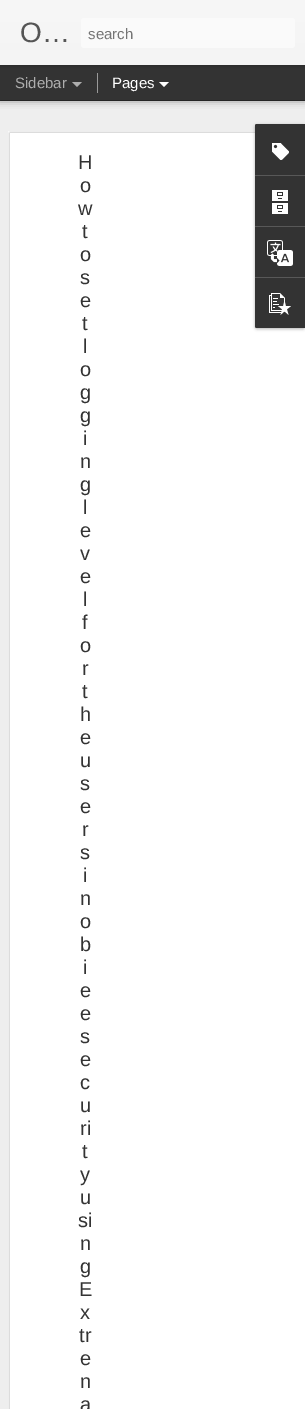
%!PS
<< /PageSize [305 1409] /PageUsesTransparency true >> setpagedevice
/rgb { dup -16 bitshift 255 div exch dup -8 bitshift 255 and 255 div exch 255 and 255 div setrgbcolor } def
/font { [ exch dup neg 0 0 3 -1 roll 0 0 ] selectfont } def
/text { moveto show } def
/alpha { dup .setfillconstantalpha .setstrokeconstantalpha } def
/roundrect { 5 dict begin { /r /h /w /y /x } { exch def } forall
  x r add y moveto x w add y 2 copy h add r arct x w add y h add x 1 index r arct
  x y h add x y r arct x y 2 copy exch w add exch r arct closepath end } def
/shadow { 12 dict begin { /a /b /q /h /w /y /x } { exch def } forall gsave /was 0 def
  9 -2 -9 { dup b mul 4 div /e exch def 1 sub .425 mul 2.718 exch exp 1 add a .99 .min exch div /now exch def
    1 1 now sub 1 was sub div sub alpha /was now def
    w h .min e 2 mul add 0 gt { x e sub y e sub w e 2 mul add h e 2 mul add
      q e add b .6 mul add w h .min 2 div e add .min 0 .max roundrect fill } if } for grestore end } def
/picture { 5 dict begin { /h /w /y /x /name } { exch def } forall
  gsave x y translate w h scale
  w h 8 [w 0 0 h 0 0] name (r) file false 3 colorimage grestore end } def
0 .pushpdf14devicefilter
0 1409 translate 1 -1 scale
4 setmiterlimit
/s1 { /LiberationSans-Regular 28 font 16#555555 rgb } def
/s2 { /LiberationSans-Regular 15 font 16#757575 rgb } def
/s3 { /LiberationSans-Regular 15 font 16#ADADAD rgb } def
/s4 { /LiberationSans-Regular 15 font 16#FFFFFF rgb } def
/s5 { /LiberationSans-Regular 20 font 16#333333 rgb } def
16#333333 rgb
0 0 305 1409 rectfill
16#EEEEEE rgb
0 101 305 1308 rectfill
16#000000 rgb
0 65 305 35 0 4 0.5 shadow
16#333333 rgb
0 65 305 35 rectfill
16#999999 rgb
97 73 1 20 rectfill
16#000000 rgb
0 0 305 65 0 2.5 0.3 shadow
gsave 0 0 moveto 305 0 lineto 305 65 lineto 0 65 lineto closepath clip newpath
<< /ShadingType 2 /ColorSpace /DeviceRGB /Coords [0 0 0 65] /Extend [true true] /Function << /FunctionType 2 /Domain [0 1] /C0 [0.969 0.969 0.969] /C1 [0.957 0.957 0.957] /N 1 >> >> shfill grestore
s1
(O…) 20 42 text
16#FAFAFA rgb
81 18 214 30 3 roundrect fill
s2
(search) 88 39 text
s3
(Sidebar) 15 88 text
72 82 moveto 82 82 lineto 77 87 lineto closepath fill
s4
(Pages) 112 88 text
159 82 moveto 169 82 lineto 164 87 lineto closepath fill
8 131 297 1278 rectfill
(pic1.raw) 8 131 247 1278 picture
s5
(H) 78 169 text
(o) 80 192 text
(w) 78 215 text
(t) 82 238 text
(o) 80 261 text
(s) 80 284 text
(e) 80 307 text
(t) 82 330 text
(l) 83 353 text
(o) 80 376 text
(g) 80 399 text
(g) 80 422 text
(i) 83 445 text
(n) 80 468 text
(g) 80 491 text
(l) 83 514 text
(e) 80 537 text
(v) 80 560 text
(e) 80 583 text
(l) 83 606 text
(f) 82 629 text
(o) 80 652 text
(r) 82 675 text
(t) 82 698 text
(h) 80 721 text
(e) 80 744 text
(u) 80 767 text
(s) 80 790 text
(e) 80 813 text
(r) 82 836 text
(s) 80 859 text
(i) 83 882 text
(n) 80 905 text
(o) 80 928 text
(b) 80 951 text
(i) 83 974 text
(e) 80 997 text
(e) 80 1020 text
(s) 80 1043 text
(e) 80 1066 text
(c) 80 1089 text
(u) 80 1112 text
(ri) 80 1135 text
(t) 82 1158 text
(y) 80 1181 text
(u) 80 1204 text
(si) 78 1227 text
(n) 80 1250 text
(g) 80 1273 text
(E) 79 1296 text
(x) 80 1319 text
(tr) 79 1342 text
(e) 80 1365 text
(n) 80 1388 text
(a) 80 1411 text
16#000000 rgb
255 125 50 204 2 1.5 0.3 shadow
16#333333 rgb
257 124 moveto 305 124 lineto 305 328 lineto 257 328 lineto 256 328 255 327 255 326 curveto 255 126 lineto 255 125 256 124 257 124 curveto closepath fill
257 124 moveto 305 124 lineto 305 175 lineto 255 175 lineto 255 126 lineto 255 125 256 124 257 124 curveto closepath fill
(pic2.raw) 272 143 17 17 picture
16#585858 rgb
255 175 50 1 rectfill
(pic3.raw) 272 190 16 24 picture
255 226 50 1 rectfill
(pic4.raw) 267 240 26 26 picture
16#333333 rgb
255 277 moveto 305 277 lineto 305 328 lineto 257 328 lineto 256 328 255 327 255 326 curveto closepath fill
16#585858 rgb
255 277 50 1 rectfill
(pic5.raw) 269 293 22 22 picture
.poppdf14devicefilter showpage
